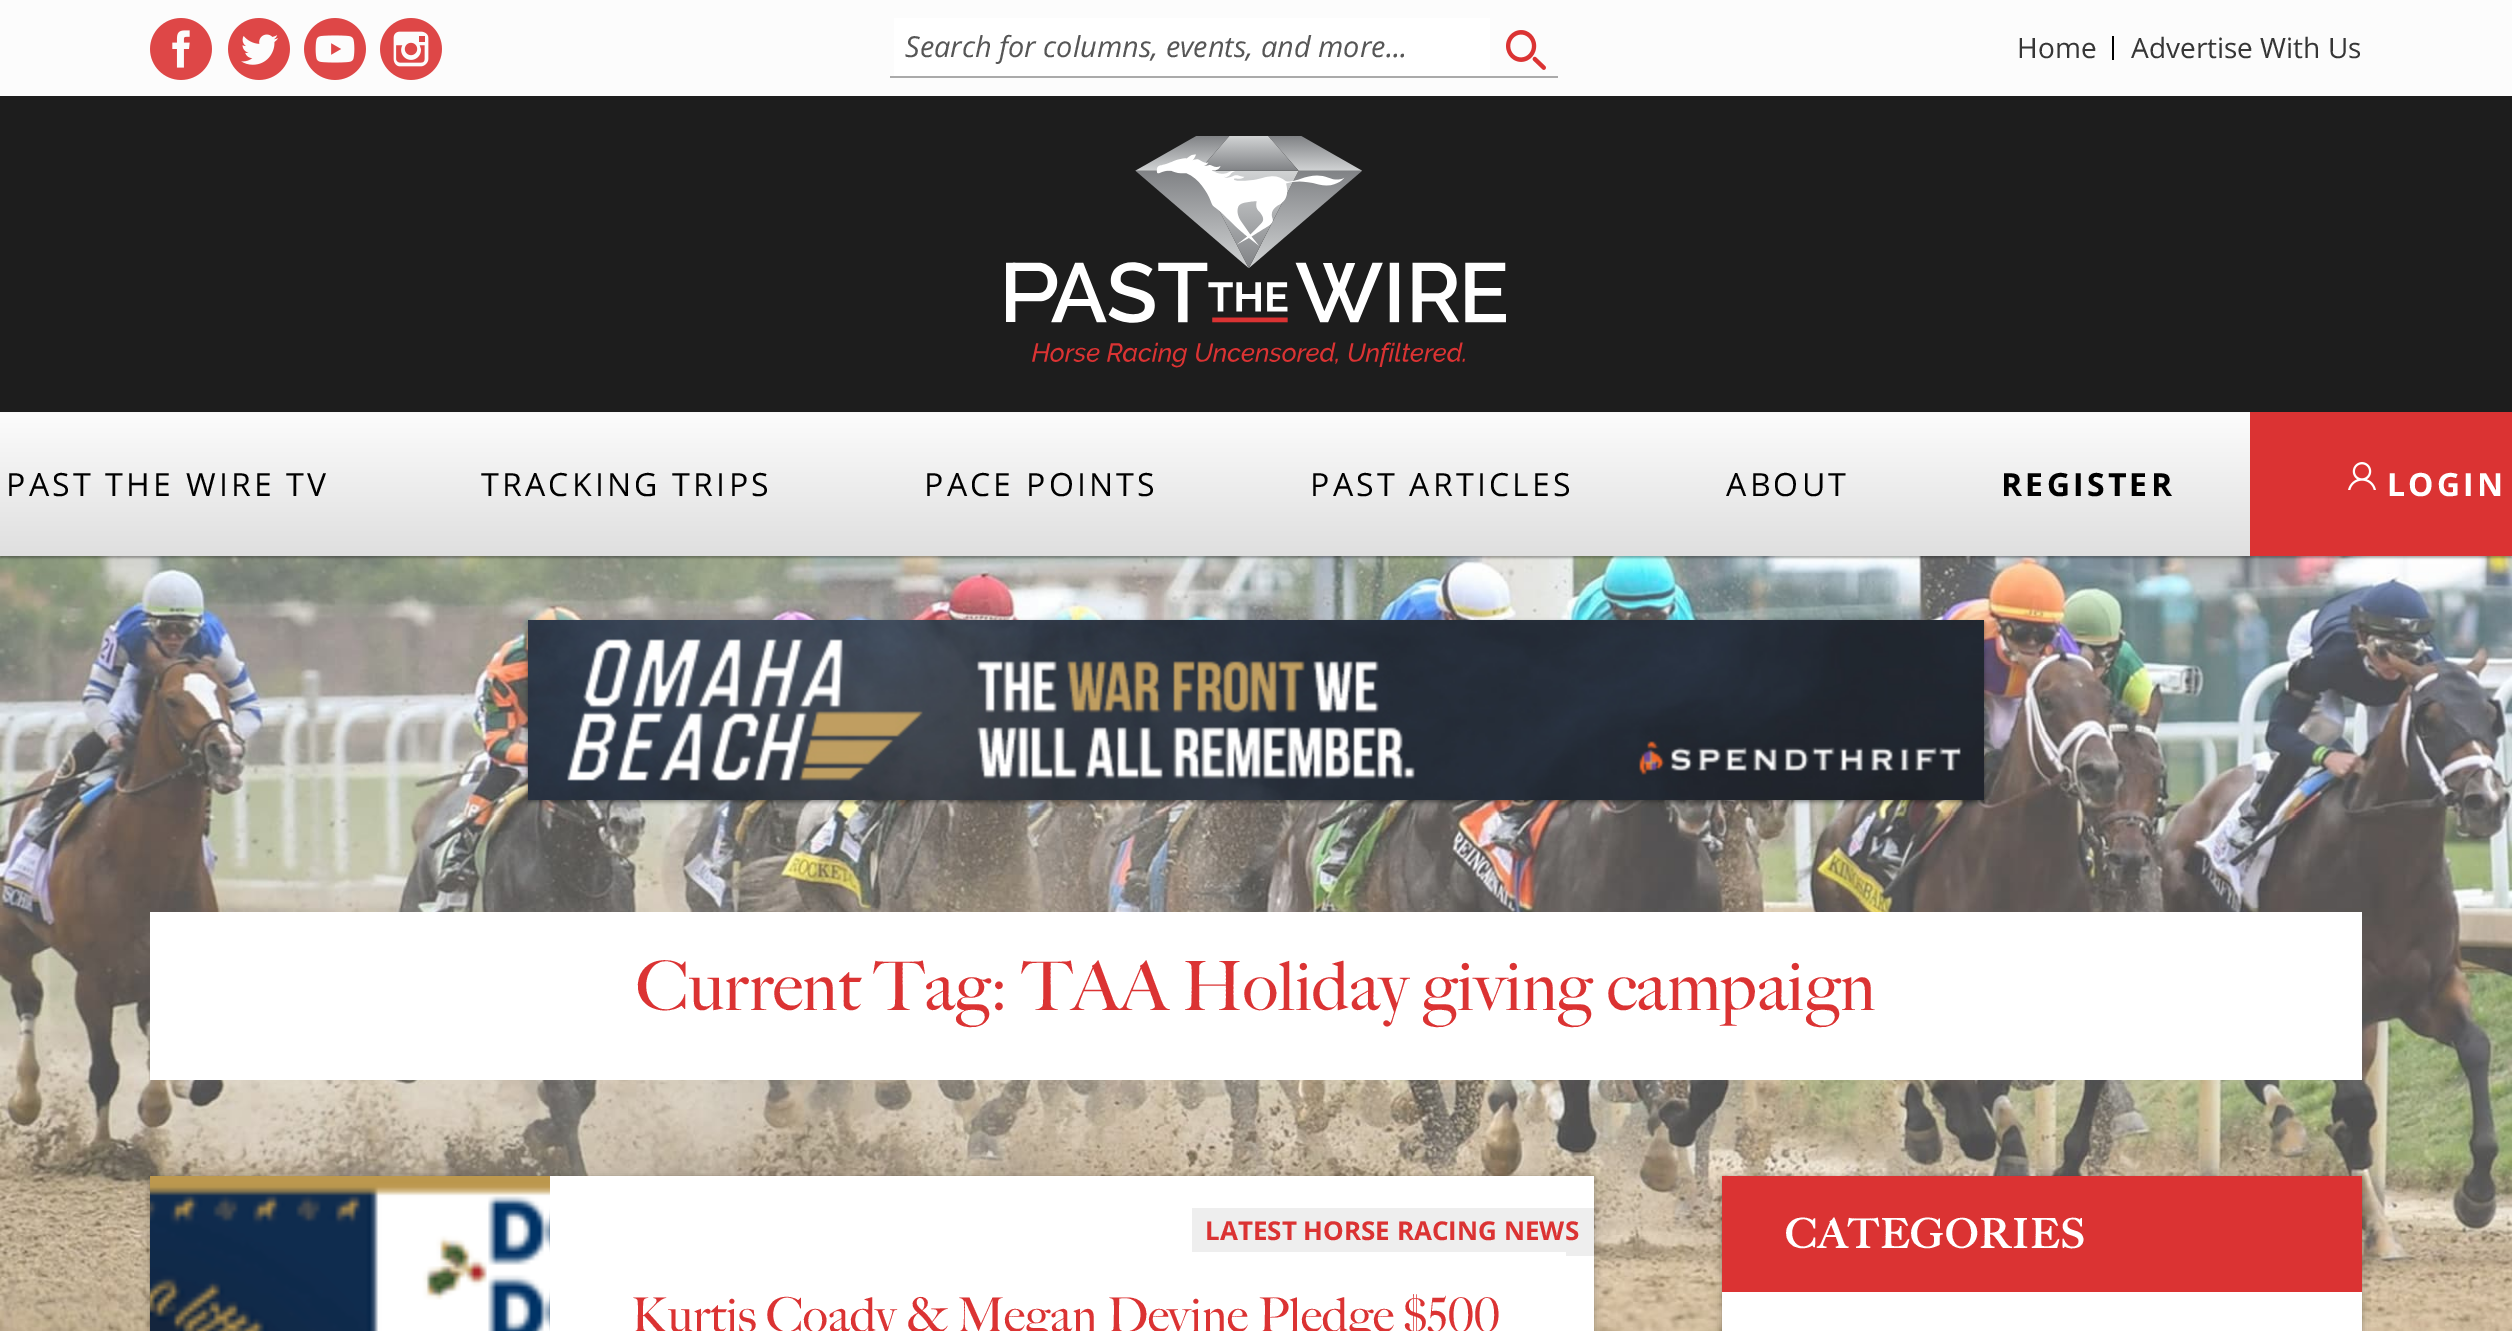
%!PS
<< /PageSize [2512 1331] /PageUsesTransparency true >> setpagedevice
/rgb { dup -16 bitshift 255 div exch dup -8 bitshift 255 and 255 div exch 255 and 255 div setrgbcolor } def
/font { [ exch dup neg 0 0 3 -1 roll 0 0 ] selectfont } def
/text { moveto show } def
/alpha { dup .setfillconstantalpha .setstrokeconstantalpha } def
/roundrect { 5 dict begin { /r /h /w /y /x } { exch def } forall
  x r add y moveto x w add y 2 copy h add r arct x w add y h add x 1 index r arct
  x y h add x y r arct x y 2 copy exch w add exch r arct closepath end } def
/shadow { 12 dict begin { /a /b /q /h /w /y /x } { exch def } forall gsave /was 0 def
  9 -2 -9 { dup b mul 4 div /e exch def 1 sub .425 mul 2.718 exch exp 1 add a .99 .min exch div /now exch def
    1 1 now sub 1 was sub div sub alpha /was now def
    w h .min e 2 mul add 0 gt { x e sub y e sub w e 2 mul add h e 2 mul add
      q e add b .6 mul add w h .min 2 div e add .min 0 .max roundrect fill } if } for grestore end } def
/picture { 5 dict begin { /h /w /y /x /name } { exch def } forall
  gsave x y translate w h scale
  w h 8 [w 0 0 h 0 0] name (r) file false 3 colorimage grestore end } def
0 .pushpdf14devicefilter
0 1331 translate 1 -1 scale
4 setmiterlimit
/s1 { /OpenSans-Italic 29 font 16#565656 rgb } def
/s2 { /OpenSans-Regular 28 font 16#363636 rgb } def
/s3 { /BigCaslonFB-Regular 68 font 16#DB3333 rgb } def
/s4 { /OpenSans-Bold 26 font 16#DB3333 rgb } def
/s5 { /BigCaslonFB-Regular 48 font 16#DB3333 rgb } def
16#FFFFFF rgb
0 0 2512 1331 rectfill
16#FCFCFC rgb
0 0 2512 96 rectfill
(pic1.raw) 150 18 62 62 picture
(pic2.raw) 228 18 62 62 picture
(pic3.raw) 304 18 62 62 picture
(pic4.raw) 380 18 62 62 picture
16#AAAAAA rgb
890 76 668 2 rectfill
16#FFFFFF rgb
894 18 596 58 rectfill
s1
(Search for columns, events, and more...) 905 57 text
(pic5.raw) 1506 30 40 40 picture
s2
(Home) 2017 58 text
16#000000 rgb
2112 36 2 24 rectfill
s2
(Advertise With Us) 2131 58 text
(pic8.raw) 0 556 2512 775 picture
16#000000 rgb
0 414 2512 144 0 1 0.32 shadow
16#1D1D1D rgb
0 96 2512 316 rectfill
(pic6.raw) 1006 136 500 232 picture
gsave 0 413 moveto 2250 413 lineto 2250 556 lineto 0 556 lineto closepath clip newpath
<< /ShadingType 2 /ColorSpace /DeviceRGB /Coords [1256 412 1256 556] /Extend [true true] /Function << /FunctionType 2 /Domain [0 1] /C0 [0.988 0.988 0.988] /C1 [0.875 0.875 0.875] /N 1 >> >> shfill grestore
/OpenSans-Regular 32 font
16#000000 rgb
6 496 moveto 3.25 0 (PAST THE WIRE TV) ashow
481 496 moveto 3.25 0 (TRACKING TRIPS) ashow
924 496 moveto 3.25 0 (PACE POINTS) ashow
1310 496 moveto 3.25 0 (PAST ARTICLES) ashow
1726 496 moveto 3.25 0 (ABOUT) ashow
/OpenSans-Bold 32 font
2001 496 moveto 3.25 0 (REGISTER) ashow
16#DB3333 rgb
2250 412 262 144 rectfill
(pic7.raw) 2348 462 28 28 picture
16#FFFFFF rgb
2387 496 moveto 3.25 0 (LOGIN) ashow
16#000000 rgb
528 622 1456 180 0 2 0.4 shadow
(pic9.raw) 528 620 1456 180 picture
16#FFFFFF rgb
150 912 2212 168 rectfill
s3
(Current Tag: TAA Holiday giving campaign) 636 1010 text
16#000000 rgb
150 1178 1444 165 0 4 0.27 shadow
16#FFFFFF rgb
550 1176 1044 155 rectfill
(pic10.raw) 150 1176 400 155 picture
16#EEEEEE rgb
1566 1208 28 48 rectfill
1192 1208 374 44 rectfill
s4
(LATEST HORSE RACING NEWS) 1205 1240 text
s5
(Kurtis Coady & Megan Devine Pledge $500) 631 1332 text
16#000000 rgb
1722 1178 640 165 0 4 0.27 shadow
16#FFFFFF rgb
1722 1292 640 39 rectfill
16#DB3333 rgb
1722 1176 640 116 rectfill
/BigCaslonFB-Bold 40 font
16#FFFFFF rgb
1785 1248 moveto 2 0 (CATEGORIES) ashow
.poppdf14devicefilter showpage
